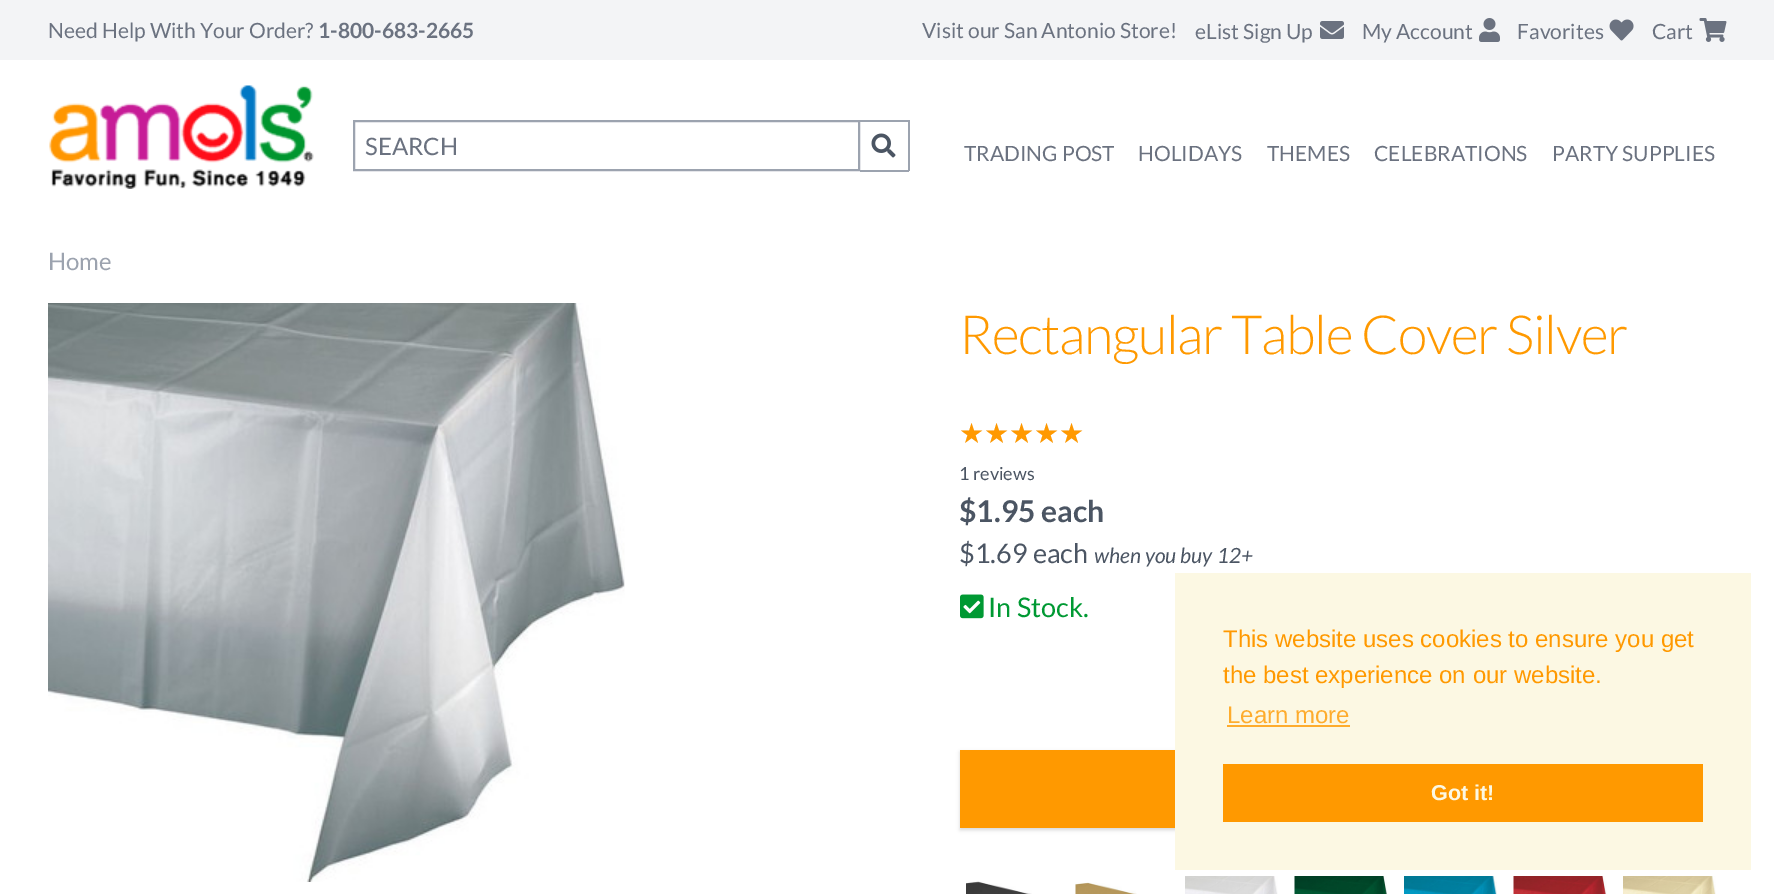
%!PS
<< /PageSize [1774 894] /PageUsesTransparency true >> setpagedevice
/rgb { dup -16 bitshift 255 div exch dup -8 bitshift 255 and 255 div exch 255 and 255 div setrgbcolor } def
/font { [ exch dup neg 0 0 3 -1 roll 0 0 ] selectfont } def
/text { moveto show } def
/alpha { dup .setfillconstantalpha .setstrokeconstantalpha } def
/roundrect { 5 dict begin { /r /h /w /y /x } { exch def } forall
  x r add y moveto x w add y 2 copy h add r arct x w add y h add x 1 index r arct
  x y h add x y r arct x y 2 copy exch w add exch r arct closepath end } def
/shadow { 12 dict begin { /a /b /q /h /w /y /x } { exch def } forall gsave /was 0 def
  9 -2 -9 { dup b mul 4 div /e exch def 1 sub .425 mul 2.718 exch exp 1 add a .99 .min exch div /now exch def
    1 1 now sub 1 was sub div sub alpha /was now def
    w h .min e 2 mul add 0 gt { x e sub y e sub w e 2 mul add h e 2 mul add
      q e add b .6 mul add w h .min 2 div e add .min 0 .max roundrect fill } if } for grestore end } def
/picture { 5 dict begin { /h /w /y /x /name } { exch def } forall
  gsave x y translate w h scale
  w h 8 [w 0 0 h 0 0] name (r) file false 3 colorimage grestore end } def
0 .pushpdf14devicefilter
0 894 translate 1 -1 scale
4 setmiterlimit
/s1 { /Lato-Regular 21 font 16#6B7280 rgb } def
/s2 { /Lato-Bold 21 font 16#6B7280 rgb } def
/s3 { /Lato-Regular 24 font 16#6B7280 rgb } def
/s4 { /Lato-Regular 24 font 16#9CA3AF rgb } def
/s5 { /DejaVuSans-Regular 28 font 16#EEEEEE rgb } def
/s6 { /DejaVuSans-Regular 28 font 16#FF9900 rgb } def
/s7 { /Lato-Regular 18 font 16#4B5563 rgb } def
/s8 { /Lato-Bold 30 font 16#4B5563 rgb } def
/s9 { /Lato-Regular 27 font 16#4B5563 rgb } def
/s10 { /Lato-Italic 21 font 16#4B5563 rgb } def
/s11 { /Lato-Regular 27 font 16#009933 rgb } def
/s12 { /LiberationSans-Regular 24 font 16#FF9900 rgb } def
/s13 { /LiberationSans-Regular 24 font 16#FEAC2D rgb } def
/s14 { /LiberationSans-Bold 21.5 font 16#FCF8E3 rgb } def
16#FFFFFF rgb
0 0 1774 894 rectfill
16#F3F4F6 rgb
0 0 1774 60 rectfill
s1
(Need Help With Your Order?) 48 38 text
s2
(1-800-683-2665) 318 38 text
s1
(Visit our San Antonio Store!) 922 38 text
(eList Sign Up) 1195 39 text
(pic1.raw) 1320 21 24 18 picture
(My Account) 1362 39 text
(pic2.raw) 1479 18 21 24 picture
(Favorites) 1517 39 text
(pic3.raw) 1609 19 25 22 picture
(Cart) 1652 39 text
(pic4.raw) 1699 18 28 24 picture
(pic5.raw) 49 85 265 104 picture
16#9CA3AF rgb
2 setlinewidth
354 121 505 49 rectstroke
s3
(SEARCH) 365 155 text
16#9CA3AF rgb
860 120 49 2 rectfill
908 120 2 51 rectfill
860 170 49 2 rectfill
(pic6.raw) 871 133 25 25 picture
s1
(TRADING POST) 964 161 text
(HOLIDAYS) 1138 161 text
(THEMES) 1267 161 text
(CELEBRATIONS) 1374 161 text
(PARTY SUPPLIES) 1552 161 text
s4
(Home) 48 270 text
(pic7.raw) 48 303 577 579 picture
/Lato-Light 54 font
16#FF9900 rgb
959 354 moveto -1.35 0 (Rectangular Table Cover Silver) ashow
s5
(★★★★★) 959 443 text
s6
(★★★★★) 959 443 text
s7
(1 reviews) 959 480 text
s8
($1.95 each) 959 522 text
s9
($1.69 each) 959 563 text
s10
(when you buy 12+) 1094 563 text
(pic8.raw) 960 594 24 25 picture
s11
(In Stock.) 988 617 text
16#000000 rgb
960 752 767 78 0 1.5 0.06 shadow
960 752 767 78 0 2 0.1 shadow
16#FF9900 rgb
960 750 215 78 rectfill
(pic9.raw) 966 881 66 13 picture
(pic10.raw) 1075 882 62 12 picture
(pic11.raw) 1185 876 93 18 picture
(pic12.raw) 1294 876 93 18 picture
(pic13.raw) 1404 876 93 18 picture
(pic14.raw) 1513 876 94 18 picture
(pic15.raw) 1623 876 93 18 picture
16#FCF8E3 rgb
1175 573 576 297 rectfill
s12
(This website uses cookies to ensure you get) 1223 647 text
(the best experience on our website.) 1223 683 text
s13
(Learn more) 1227 723 text
1227 725 123 2 rectfill
16#FF9900 rgb
1223 764 480 58 rectfill
s14
(Got it!) 1431 800 text
.poppdf14devicefilter showpage
